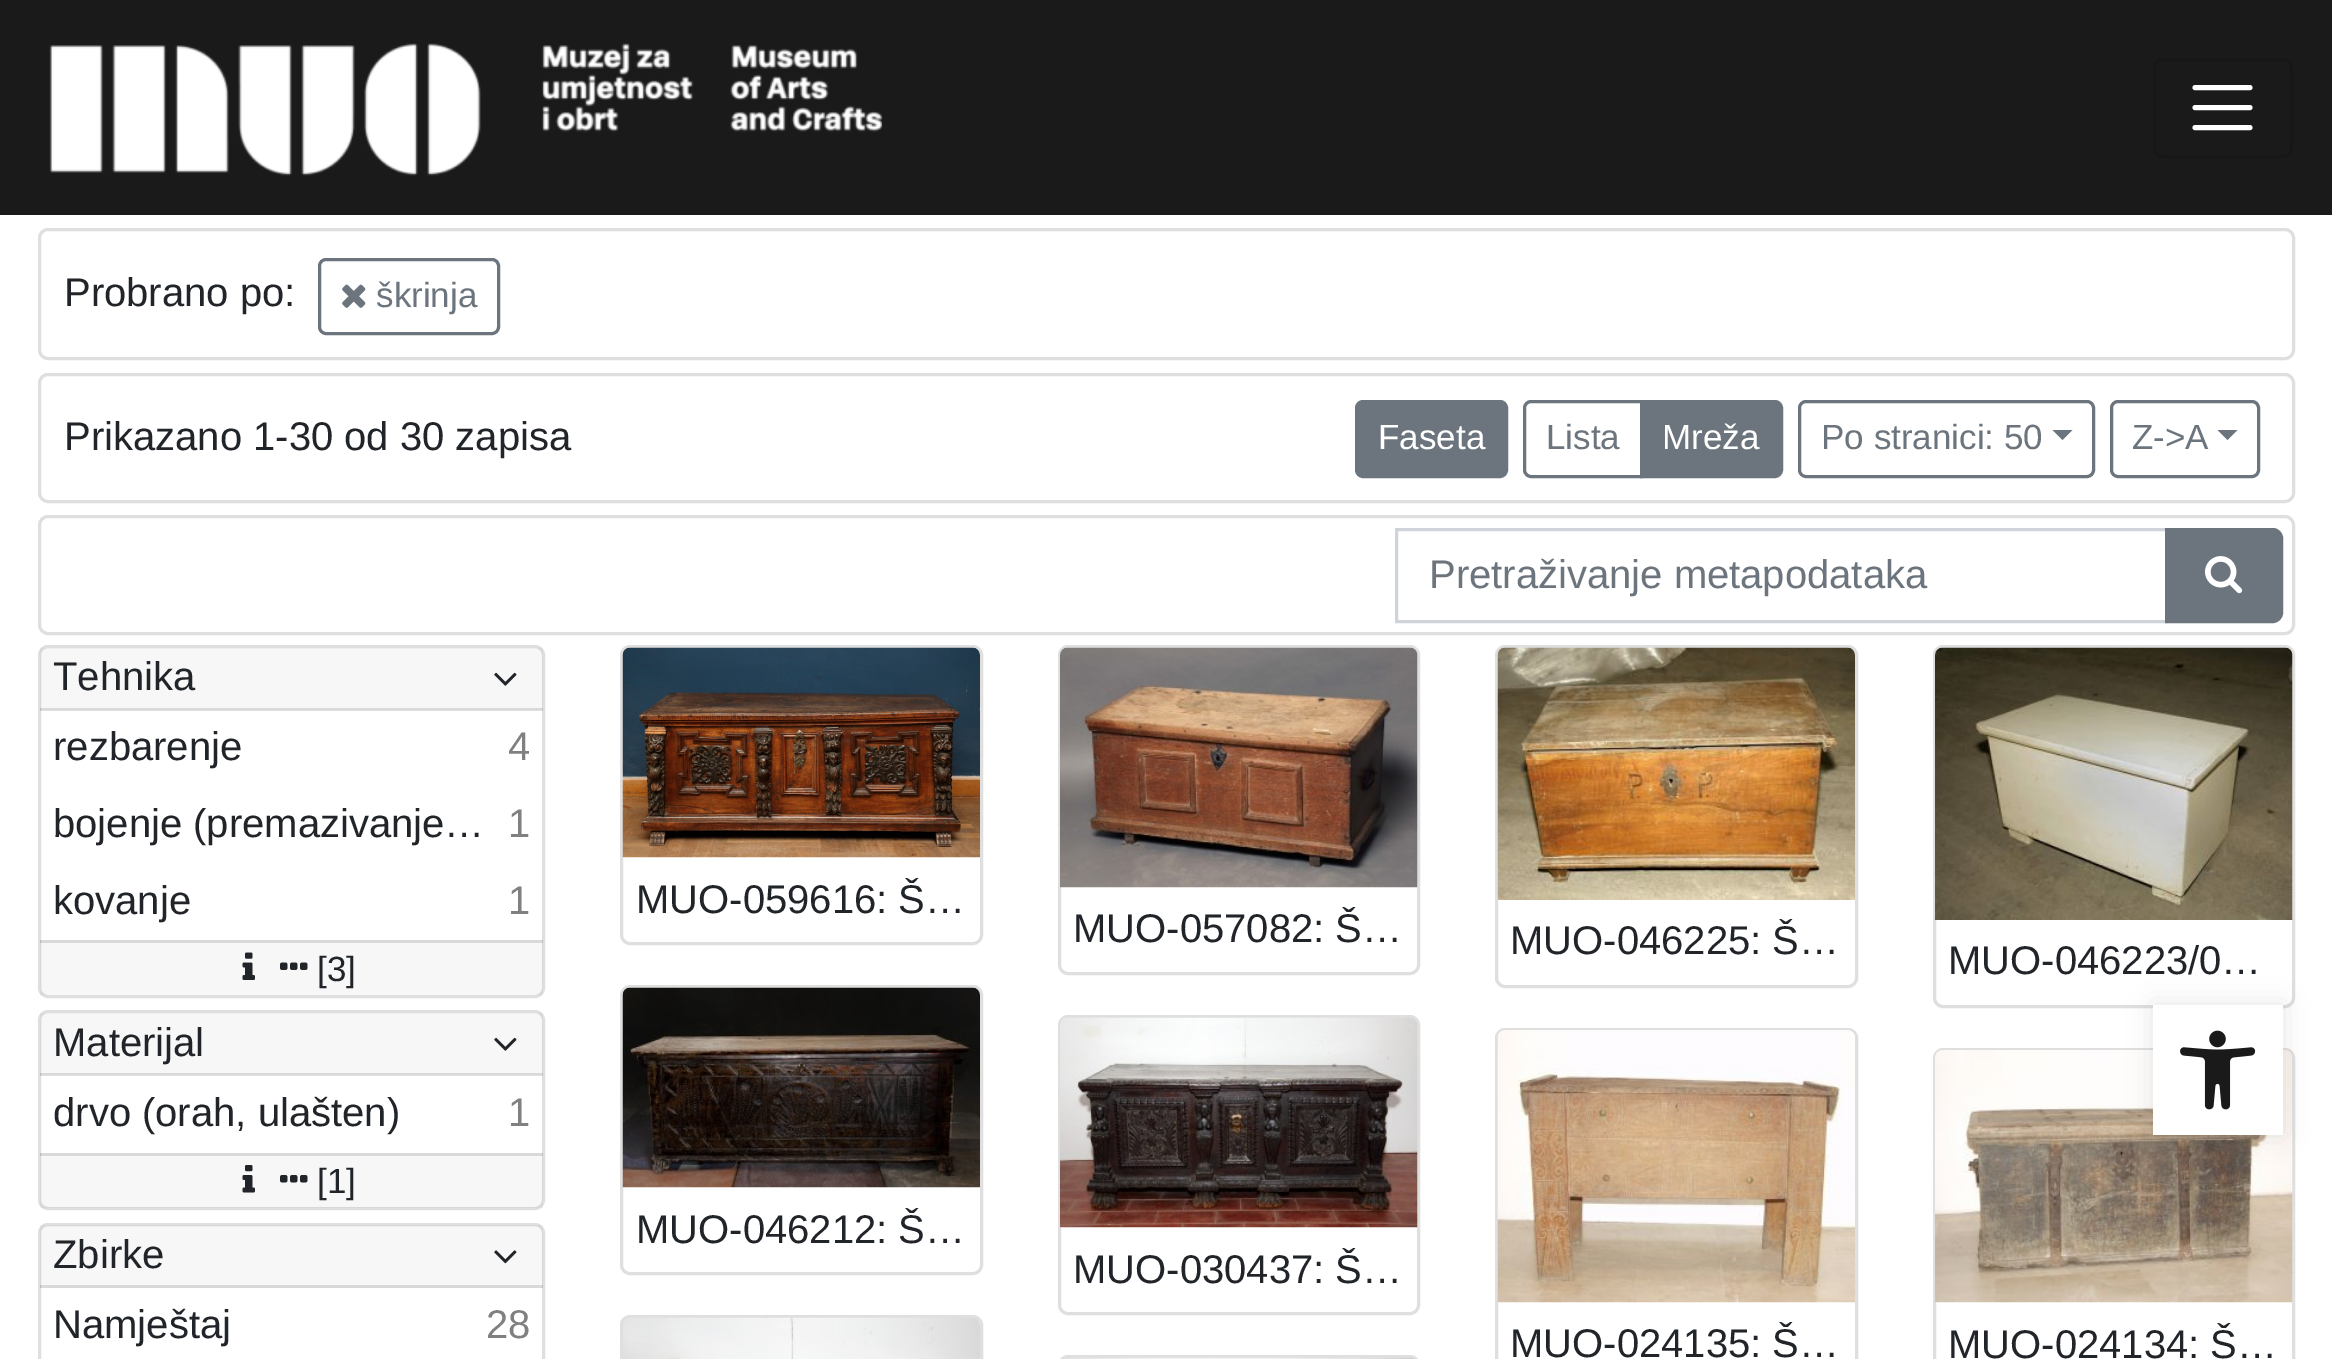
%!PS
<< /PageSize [2332 1359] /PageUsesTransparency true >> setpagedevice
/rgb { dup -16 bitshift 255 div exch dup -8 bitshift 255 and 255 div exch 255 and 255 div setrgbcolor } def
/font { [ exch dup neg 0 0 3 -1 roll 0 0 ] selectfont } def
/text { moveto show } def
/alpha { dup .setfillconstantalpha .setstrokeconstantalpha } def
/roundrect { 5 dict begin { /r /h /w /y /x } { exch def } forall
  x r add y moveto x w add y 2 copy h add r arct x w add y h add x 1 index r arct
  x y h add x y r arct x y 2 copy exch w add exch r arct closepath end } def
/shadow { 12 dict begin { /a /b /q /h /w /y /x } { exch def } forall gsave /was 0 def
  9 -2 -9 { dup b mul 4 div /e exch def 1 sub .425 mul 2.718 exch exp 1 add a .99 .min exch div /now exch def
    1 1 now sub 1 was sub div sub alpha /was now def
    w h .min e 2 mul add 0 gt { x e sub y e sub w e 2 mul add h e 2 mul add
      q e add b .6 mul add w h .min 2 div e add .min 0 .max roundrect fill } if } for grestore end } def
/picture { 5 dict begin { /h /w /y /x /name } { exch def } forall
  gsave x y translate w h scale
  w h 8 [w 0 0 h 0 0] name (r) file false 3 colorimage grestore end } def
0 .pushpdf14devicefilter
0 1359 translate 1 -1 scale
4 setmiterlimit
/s1 { /LiberationSans-Regular 40 font 16#212529 rgb } def
/s2 { /LiberationSans-Regular 35 font 16#6C757D rgb } def
/s3 { /LiberationSans-Regular 35 font 16#FFFFFF rgb } def
/s4 { /LiberationSans-Regular 40 font 16#6C757D rgb } def
/s5 { /LiberationSans-Regular 40 font 16#808080 rgb } def
/s6 { /LiberationSans-Regular 35 font 16#212529 rgb } def
16#FFFFFF rgb
0 0 2332 1359 rectfill
16#1A1A1A rgb
0 0 2332 215 rectfill
(pic1.raw) 49 43 834 133 picture
16#171717 rgb
3 setlinewidth
2154.5 59.5 137 97 8.5 roundrect stroke
16#FFFFFF rgb
5 setlinewidth
1 setlinecap
2195 87.5 moveto 2250 87.5 lineto 2195 107.5 moveto 2250 107.5 lineto 2195 127.5 moveto 2250 127.5 lineto stroke
16#DFDFDF rgb
3 setlinewidth
0 setlinecap
39.5 229.5 2254 129 8.5 roundrect stroke
s1
(Probrano po:) 64 306 text
16#6C757D rgb
319.5 259.5 179 74 6.5 roundrect stroke
(pic2.raw) 342 284 24 24 picture
s2
(škrinja) 376 307 text
16#DFDFDF rgb
39.5 374.5 2254 127 8.5 roundrect stroke
s1
(Prikazano 1-30 od 30 zapisa) 64 450 text
16#6C757D rgb
1356.5 401.5 150 75 6.5 roundrect gsave fill grestore
stroke
s3
(Faseta) 1378 449 text
16#6C757D rgb
1531 401.5 moveto 1641.5 401.5 lineto 1641.5 476.5 lineto 1531 476.5 lineto 1527.5 476.5 1524.5 473.5 1524.5 470 curveto 1524.5 408 lineto 1524.5 404.5 1527.5 401.5 1531 401.5 curveto closepath stroke
(Lista) 1546 449 text
1641.5 401.5 moveto 1775 401.5 lineto 1778.5 401.5 1781.5 404.5 1781.5 408 curveto 1781.5 470 lineto 1781.5 473.5 1778.5 476.5 1775 476.5 curveto 1641.5 476.5 lineto closepath gsave fill grestore
stroke
s3
(Mreža) 1662 449 text
16#6C757D rgb
1799.5 401.5 294 75 6.5 roundrect stroke
(Po stranici: 50) 1821 449 text
2052.5 430 moveto 2072.5 430 lineto 2062.5 440 lineto closepath fill
2111.5 401.5 147 75 6.5 roundrect stroke
(Z->A) 2132 449 text
2217.5 430 moveto 2237.5 430 lineto 2227.5 440 lineto closepath fill
16#DFDFDF rgb
39.5 516.5 2254 117 8.5 roundrect stroke
16#CED4DA rgb
1396.5 529.5 770 92 rectstroke
s4
(Pretraživanje metapodataka) 1429 588 text
2166.5 529.5 moveto 2273 529.5 lineto 2277.5 529.5 2281.5 533.5 2281.5 538 curveto 2281.5 613 lineto 2281.5 617.5 2277.5 621.5 2273 621.5 curveto 2166.5 621.5 lineto closepath gsave fill grestore
stroke
(pic3.raw) 2205 556 38 38 picture
16#DFDFDF rgb
39.5 646.5 504 350 8.5 roundrect stroke
0.03 alpha
16#000000 rgb
40 648 503 62 rectfill
0.12 alpha
40 708 503 3 rectfill
1 alpha
s1
(Tehnika) 53 690 text
(pic4.raw) 494 672 23 14 picture
(rezbarenje) 53 760 text
s5
(4) 508 760 text
s1
(bojenje \(premazivanje…) 53 837 text
s5
(1) 508 837 text
s1
(kovanje) 53 914 text
s5
(1) 508 914 text
0.03 alpha
16#000000 rgb
40 940 503 55 rectfill
0.12 alpha
40 940 503 3 rectfill
1 alpha
(pic5.raw) 242 952 13 28 picture
(pic6.raw) 280 962 28 8 picture
s6
([3]) 317 981 text
16#DFDFDF rgb
39.5 1011.5 504 197 8.5 roundrect stroke
0.03 alpha
16#000000 rgb
40 1013 503 62 rectfill
0.12 alpha
40 1073 503 3 rectfill
1 alpha
s1
(Materijal) 53 1056 text
(pic4.raw) 494 1037 23 14 picture
(drvo \(orah, ulašten\)) 53 1126 text
s5
(1) 508 1126 text
0.03 alpha
16#000000 rgb
40 1153 503 55 rectfill
0.12 alpha
40 1153 503 3 rectfill
1 alpha
(pic7.raw) 242 1165 13 28 picture
(pic8.raw) 280 1175 28 8 picture
s6
([1]) 317 1193 text
16#DFDFDF rgb
39.5 1224.5 504 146 8.5 roundrect stroke
0.03 alpha
16#000000 rgb
40 1225 503 63 rectfill
0.12 alpha
40 1285 503 3 rectfill
1 alpha
s1
(Zbirke) 53 1268 text
(pic9.raw) 494 1250 23 14 picture
(Namještaj) 53 1338 text
s5
(28) 486 1338 text
16#DFDFDF rgb
621.5 646.5 360 297 8.5 roundrect stroke
(pic10.raw) 622 647 358 211 picture
s1
(MUO-059616: Š…) 636 913 text
16#DFDFDF rgb
1059.5 646.5 359 327 8.5 roundrect stroke
(pic11.raw) 1060 647 358 241 picture
s1
(MUO-057082: Š…) 1073 942 text
16#DFDFDF rgb
1496.5 646.5 360 340 8.5 roundrect stroke
(pic12.raw) 1497 647 358 253 picture
s1
(MUO-046225: Š…) 1510 954 text
16#DFDFDF rgb
1934.5 646.5 359 360 8.5 roundrect stroke
(pic13.raw) 1935 647 358 273 picture
s1
(MUO-046223/0…) 1948 974 text
16#DFDFDF rgb
621.5 986.5 360 287 8.5 roundrect stroke
(pic14.raw) 622 987 358 201 picture
s1
(MUO-046212: Š…) 636 1243 text
16#DFDFDF rgb
1059.5 1016.5 359 297 8.5 roundrect stroke
(pic15.raw) 1060 1017 358 211 picture
s1
(MUO-030437: Š…) 1073 1283 text
16#DFDFDF rgb
621.5 1316.5 360 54 8.5 roundrect stroke
(pic16.raw) 623 1317 357 42 picture
1496.5 1029.5 360 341 8.5 roundrect stroke
(pic17.raw) 1497 1030 358 273 picture
s1
(MUO-024135: Š…) 1510 1357 text
16#DFDFDF rgb
1934.5 1049.5 359 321 8.5 roundrect stroke
(pic18.raw) 1935 1050 358 253 picture
s1
(MUO-024134: Š…) 1948 1358 text
16#DFDFDF rgb
1059.5 1356.5 359 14 8.5 roundrect stroke
(pic19.raw) 1065 1357 349 2 picture
16#000000 rgb
2153 1005 130 130 0 12.5 0.1 shadow
16#FFFFFF rgb
2153 1005 130 130 rectfill
(pic20.raw) 2180 1030 76 80 picture
.poppdf14devicefilter showpage
